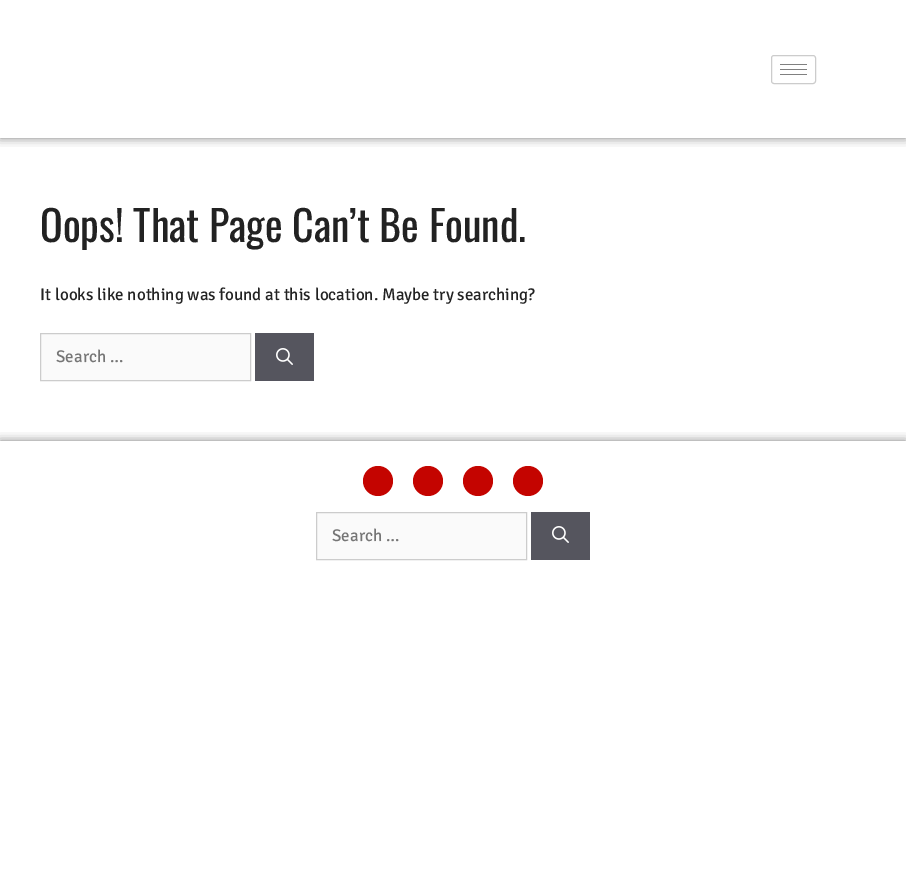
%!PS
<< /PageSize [906 893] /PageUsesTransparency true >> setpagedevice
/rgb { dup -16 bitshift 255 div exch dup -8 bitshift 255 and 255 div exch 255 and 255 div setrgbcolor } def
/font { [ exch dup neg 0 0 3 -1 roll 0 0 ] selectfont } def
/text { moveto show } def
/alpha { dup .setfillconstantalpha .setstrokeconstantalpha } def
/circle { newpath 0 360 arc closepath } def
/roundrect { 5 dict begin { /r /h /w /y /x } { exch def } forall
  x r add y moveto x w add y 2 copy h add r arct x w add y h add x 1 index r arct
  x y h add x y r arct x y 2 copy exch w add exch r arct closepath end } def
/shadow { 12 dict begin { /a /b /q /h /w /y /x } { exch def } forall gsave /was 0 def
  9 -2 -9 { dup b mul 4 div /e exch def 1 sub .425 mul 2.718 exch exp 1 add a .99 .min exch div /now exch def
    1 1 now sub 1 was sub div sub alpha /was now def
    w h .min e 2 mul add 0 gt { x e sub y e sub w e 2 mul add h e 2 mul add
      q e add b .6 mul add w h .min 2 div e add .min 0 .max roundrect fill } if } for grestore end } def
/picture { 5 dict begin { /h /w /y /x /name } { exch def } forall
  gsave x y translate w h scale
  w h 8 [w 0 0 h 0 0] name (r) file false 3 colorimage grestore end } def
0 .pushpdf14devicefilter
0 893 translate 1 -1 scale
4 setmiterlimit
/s1 { /Oswald-Regular 42 font 16#222222 rgb } def
/s2 { /Signika-Regular 17 font 16#222222 rgb } def
/s3 { /Signika-Regular 17 font 16#757575 rgb } def
16#FFFFFF rgb
0 0 906 893 rectfill
gsave
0 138 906 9 rectclip
16#000000 rgb
0 0 906 138 0 5 0.5 shadow
grestore
16#CCCCCC rgb
771.5 55.5 44 28 2.5 roundrect stroke
16#808080 rgb
780 64 27 1 rectfill
780 69 27 1 rectfill
780 74 27 1 rectfill
s1
(Oops! That Page Can’t Be Found.) 40 242 text
s2
(It looks like nothing was found at this location. Maybe try searching?) 40 300 text
16#FAFAFA rgb
40.5 333.5 moveto 250.5 333.5 lineto 250.5 380.5 lineto 40.5 380.5 lineto closepath gsave fill grestore
16#CCCCCC rgb
stroke
s3
(Search …) 56 362 text
16#55555E rgb
255 333 59 48 rectfill
(pic1.raw) 276 348 17 17 picture
gsave
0 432 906 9 rectclip
16#000000 rgb
0 441 906 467 0 5 0.5 shadow
grestore
16#C40400 rgb
378 481 15 circle fill
428 481 15 circle fill
478 481 15 circle fill
528 481 15 circle fill
16#FAFAFA rgb
316.5 512.5 moveto 526.5 512.5 lineto 526.5 559.5 lineto 316.5 559.5 lineto closepath gsave fill grestore
16#CCCCCC rgb
stroke
s3
(Search …) 332 541 text
16#55555E rgb
531 512 59 48 rectfill
(pic1.raw) 552 526 17 17 picture
.poppdf14devicefilter showpage
